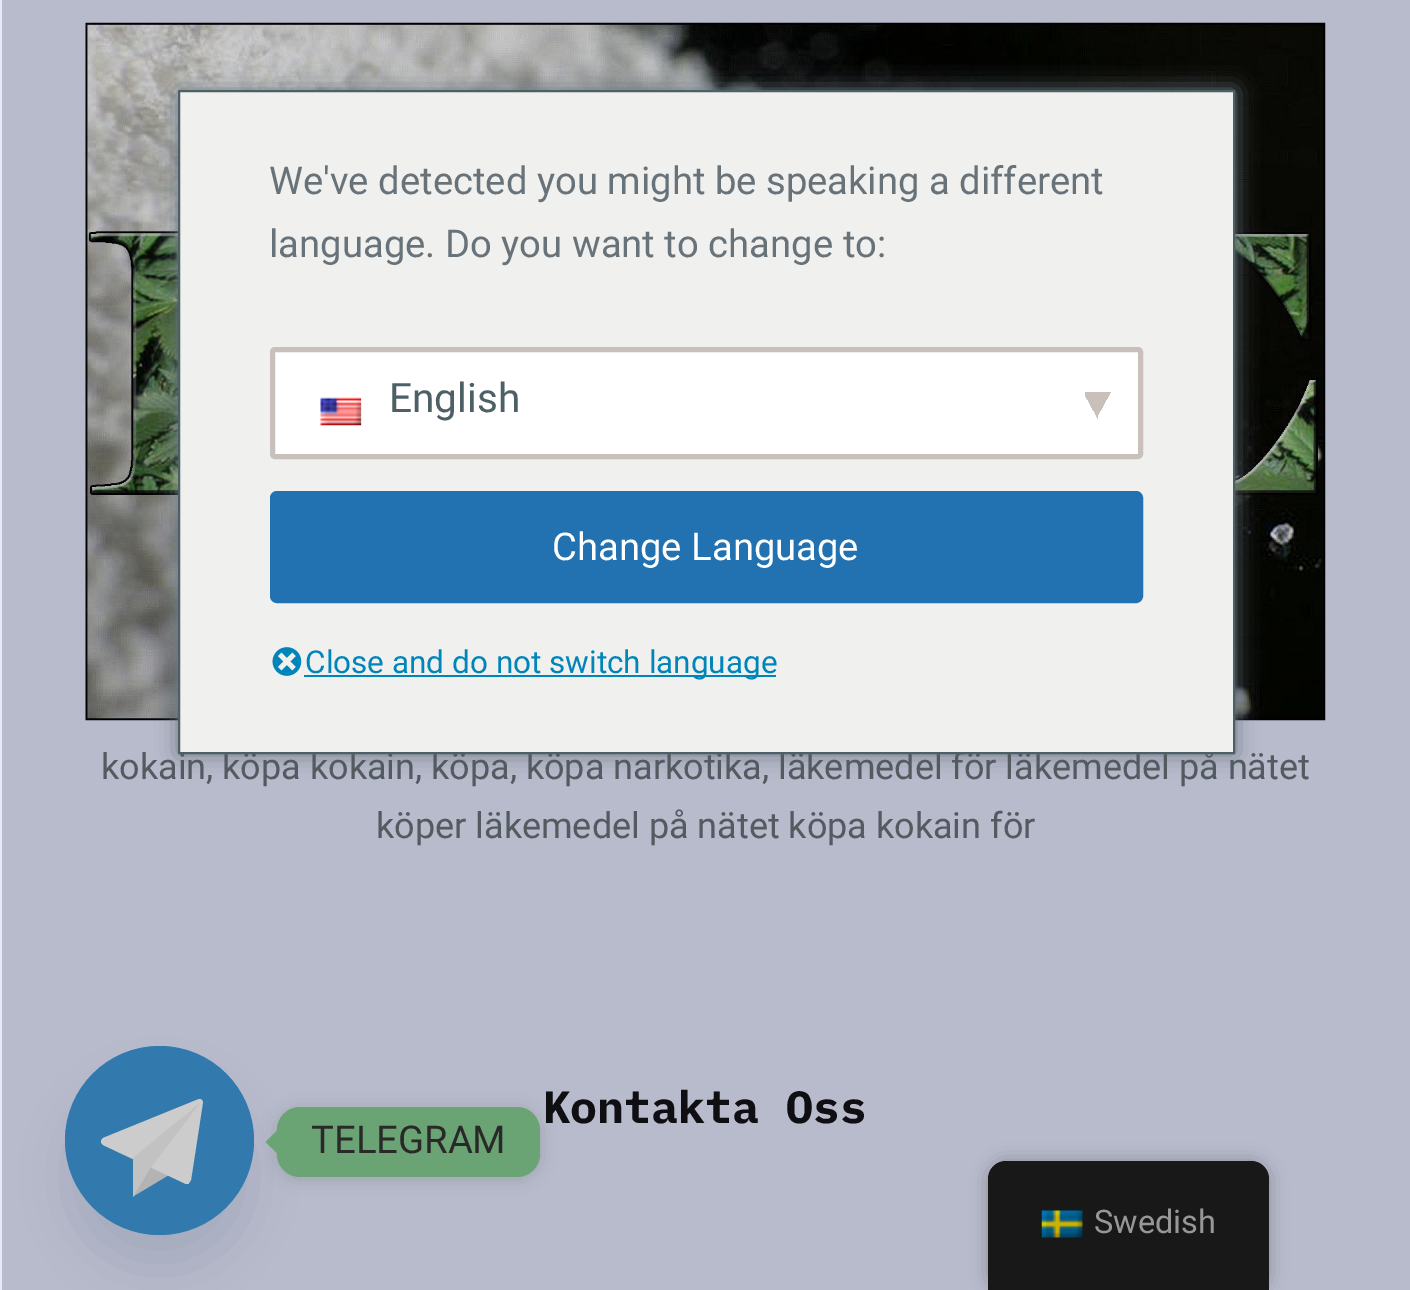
%!PS
<< /PageSize [1410 1290] /PageUsesTransparency true >> setpagedevice
/rgb { dup -16 bitshift 255 div exch dup -8 bitshift 255 and 255 div exch 255 and 255 div setrgbcolor } def
/font { [ exch dup neg 0 0 3 -1 roll 0 0 ] selectfont } def
/text { moveto show } def
/alpha { dup .setfillconstantalpha .setstrokeconstantalpha } def
/circle { newpath 0 360 arc closepath } def
/roundrect { 5 dict begin { /r /h /w /y /x } { exch def } forall
  x r add y moveto x w add y 2 copy h add r arct x w add y h add x 1 index r arct
  x y h add x y r arct x y 2 copy exch w add exch r arct closepath end } def
/shadow { 12 dict begin { /a /b /q /h /w /y /x } { exch def } forall gsave /was 0 def
  9 -2 -9 { dup b mul 4 div /e exch def 1 sub .425 mul 2.718 exch exp 1 add a .99 .min exch div /now exch def
    1 1 now sub 1 was sub div sub alpha /was now def
    w h .min e 2 mul add 0 gt { x e sub y e sub w e 2 mul add h e 2 mul add
      q e add b .6 mul add w h .min 2 div e add .min 0 .max roundrect fill } if } for grestore end } def
/picture { 5 dict begin { /h /w /y /x /name } { exch def } forall
  gsave x y translate w h scale
  w h 8 [w 0 0 h 0 0] name (r) file false 3 colorimage grestore end } def
0 .pushpdf14devicefilter
0 1290 translate 1 -1 scale
4 setmiterlimit
/s1 { /Roboto-Regular 36 font 16#535B61 rgb } def
/s2 { /Roboto-Regular 38.25 font 16#687279 rgb } def
/s3 { /Roboto-Regular 40.5 font 16#4C6066 rgb } def
/s4 { /Roboto-Regular 38.25 font 16#FFFFFF rgb } def
/s5 { /Roboto-Regular 31.5 font 16#0085BA rgb } def
/s6 { /IBMPlexMono-Bold 45 font 16#0F0E12 rgb } def
/s7 { /Roboto-Regular 38.25 font 16#292929 rgb } def
/s8 { /Roboto-Regular 32.5 font 16#979797 rgb } def
16#E6EAFF rgb
0 0 1410 1290 rectfill
16#B8BBCC rgb
2 0 1408 1290 rectfill
(pic3.raw) 85 22 1241 699 picture
16#6C7781 rgb
178 90 1057 664 0 11 1 shadow
s1
(kokain, köpa kokain, köpa, köpa narkotika, läkemedel för läkemedel på nätet) 101 779 text
16#F0F0EE rgb
179 91 moveto 1234 91 lineto 1234 753 lineto 179 753 lineto closepath gsave fill grestore
16#4C6066 rgb
2 setlinewidth
stroke
s2
(We've detected you might be speaking a different) 269 194 text
(language. Do you want to change to:) 269 257 text
16#FFFFFF rgb
270 347 873 112 5 roundrect fill
gsave 1098 392 moveto 1111 392 lineto 1111 415 lineto 1098 415 lineto closepath clip newpath
<< /ShadingType 2 /ColorSpace /DeviceRGB /Coords [1093 399 1115 411] /Extend [true true] /Function << /FunctionType 3 /Domain [0 1] /Functions [<< /FunctionType 2 /Domain [0 1] /C0 [0.788 0.753 0.733] /C1 [0.788 0.753 0.733] /N 1 >> << /FunctionType 2 /Domain [0 1] /C0 [1 1 1] /C1 [1 1 1] /N 1 >>] /Bounds [0.5] /Encode [0 1 0 1] >> >> shfill grestore
gsave 1085 392 moveto 1098 392 lineto 1098 419 lineto 1085 419 lineto closepath clip newpath
<< /ShadingType 2 /ColorSpace /DeviceRGB /Coords [1079 411 1101 399] /Extend [true true] /Function << /FunctionType 3 /Domain [0 1] /Functions [<< /FunctionType 2 /Domain [0 1] /C0 [1 1 1] /C1 [1 1 1] /N 1 >> << /FunctionType 2 /Domain [0 1] /C0 [0.788 0.753 0.733] /C1 [0.788 0.753 0.733] /N 1 >>] /Bounds [0.5] /Encode [0 1 0 1] >> >> shfill grestore
16#C9C0BB rgb
5 setlinewidth
272.5 349.5 868 107 2.5 roundrect stroke
(pic1.raw) 320 397 42 29 picture
s3
(English) 389 412 text
16#2271B1 rgb
271 492 871 110 6 roundrect gsave fill grestore
2 setlinewidth
stroke
s4
(Change Language) 552 560 text
(pic2.raw) 272 647 30 29 picture
16#0085BA rgb
304 675 472 2 rectfill
s5
(Close and do not switch language) 305 673 text
s1
(köper läkemedel på nätet köpa kokain för) 376 838 text
s6
(Kontakta Oss) 543 1123 text
16#3A5365 rgb
65 1082 189 189 94.5 27 0.16 shadow
16#327AAD rgb
159.5 1140.5 94.5 circle fill
159.5 1140.5 94 circle fill
16#B3B3B3 rgb
150 1165.5 moveto 133 1196.5 lineto 169.5 1174.5 lineto closepath fill
16#CCCCCC rgb
202 1100 moveto 201 1099 200 1099 199 1099 curveto 103 1138 lineto 102 1139 101 1140 101 1142 curveto 101 1143 102 1144 103 1145 curveto 186 1184 lineto 187 1184 lineto 188 1184 189 1184 189 1183 curveto 191 1180 lineto 203 1102 lineto closepath fill
16#C2C2C2 rgb
200 1103 moveto 133 1158 lineto 133 1197 lineto 151 1167 lineto closepath fill
16#000000 rgb
277 1109 263 70 23 8.5 0.15 shadow
16#6BA474 rgb
277 1107 263 70 23 roundrect fill
277 1130.5 moveto 277 1153 lineto 265.5 1142 lineto closepath fill
s7
(TELEGRAM) 311 1153 text
16#000000 rgb
988 1161 281 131 18 9 0.25 shadow
16#181818 rgb
1006 1161 moveto 1251 1161 lineto 1261 1161 1269 1169 1269 1179 curveto 1269 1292 lineto 988 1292 lineto 988 1179 lineto 988 1169 996 1161 1006 1161 curveto closepath fill
(pic4.raw) 1041 1210 42 28 picture
s8
(Swedish) 1094 1233 text
.poppdf14devicefilter showpage
